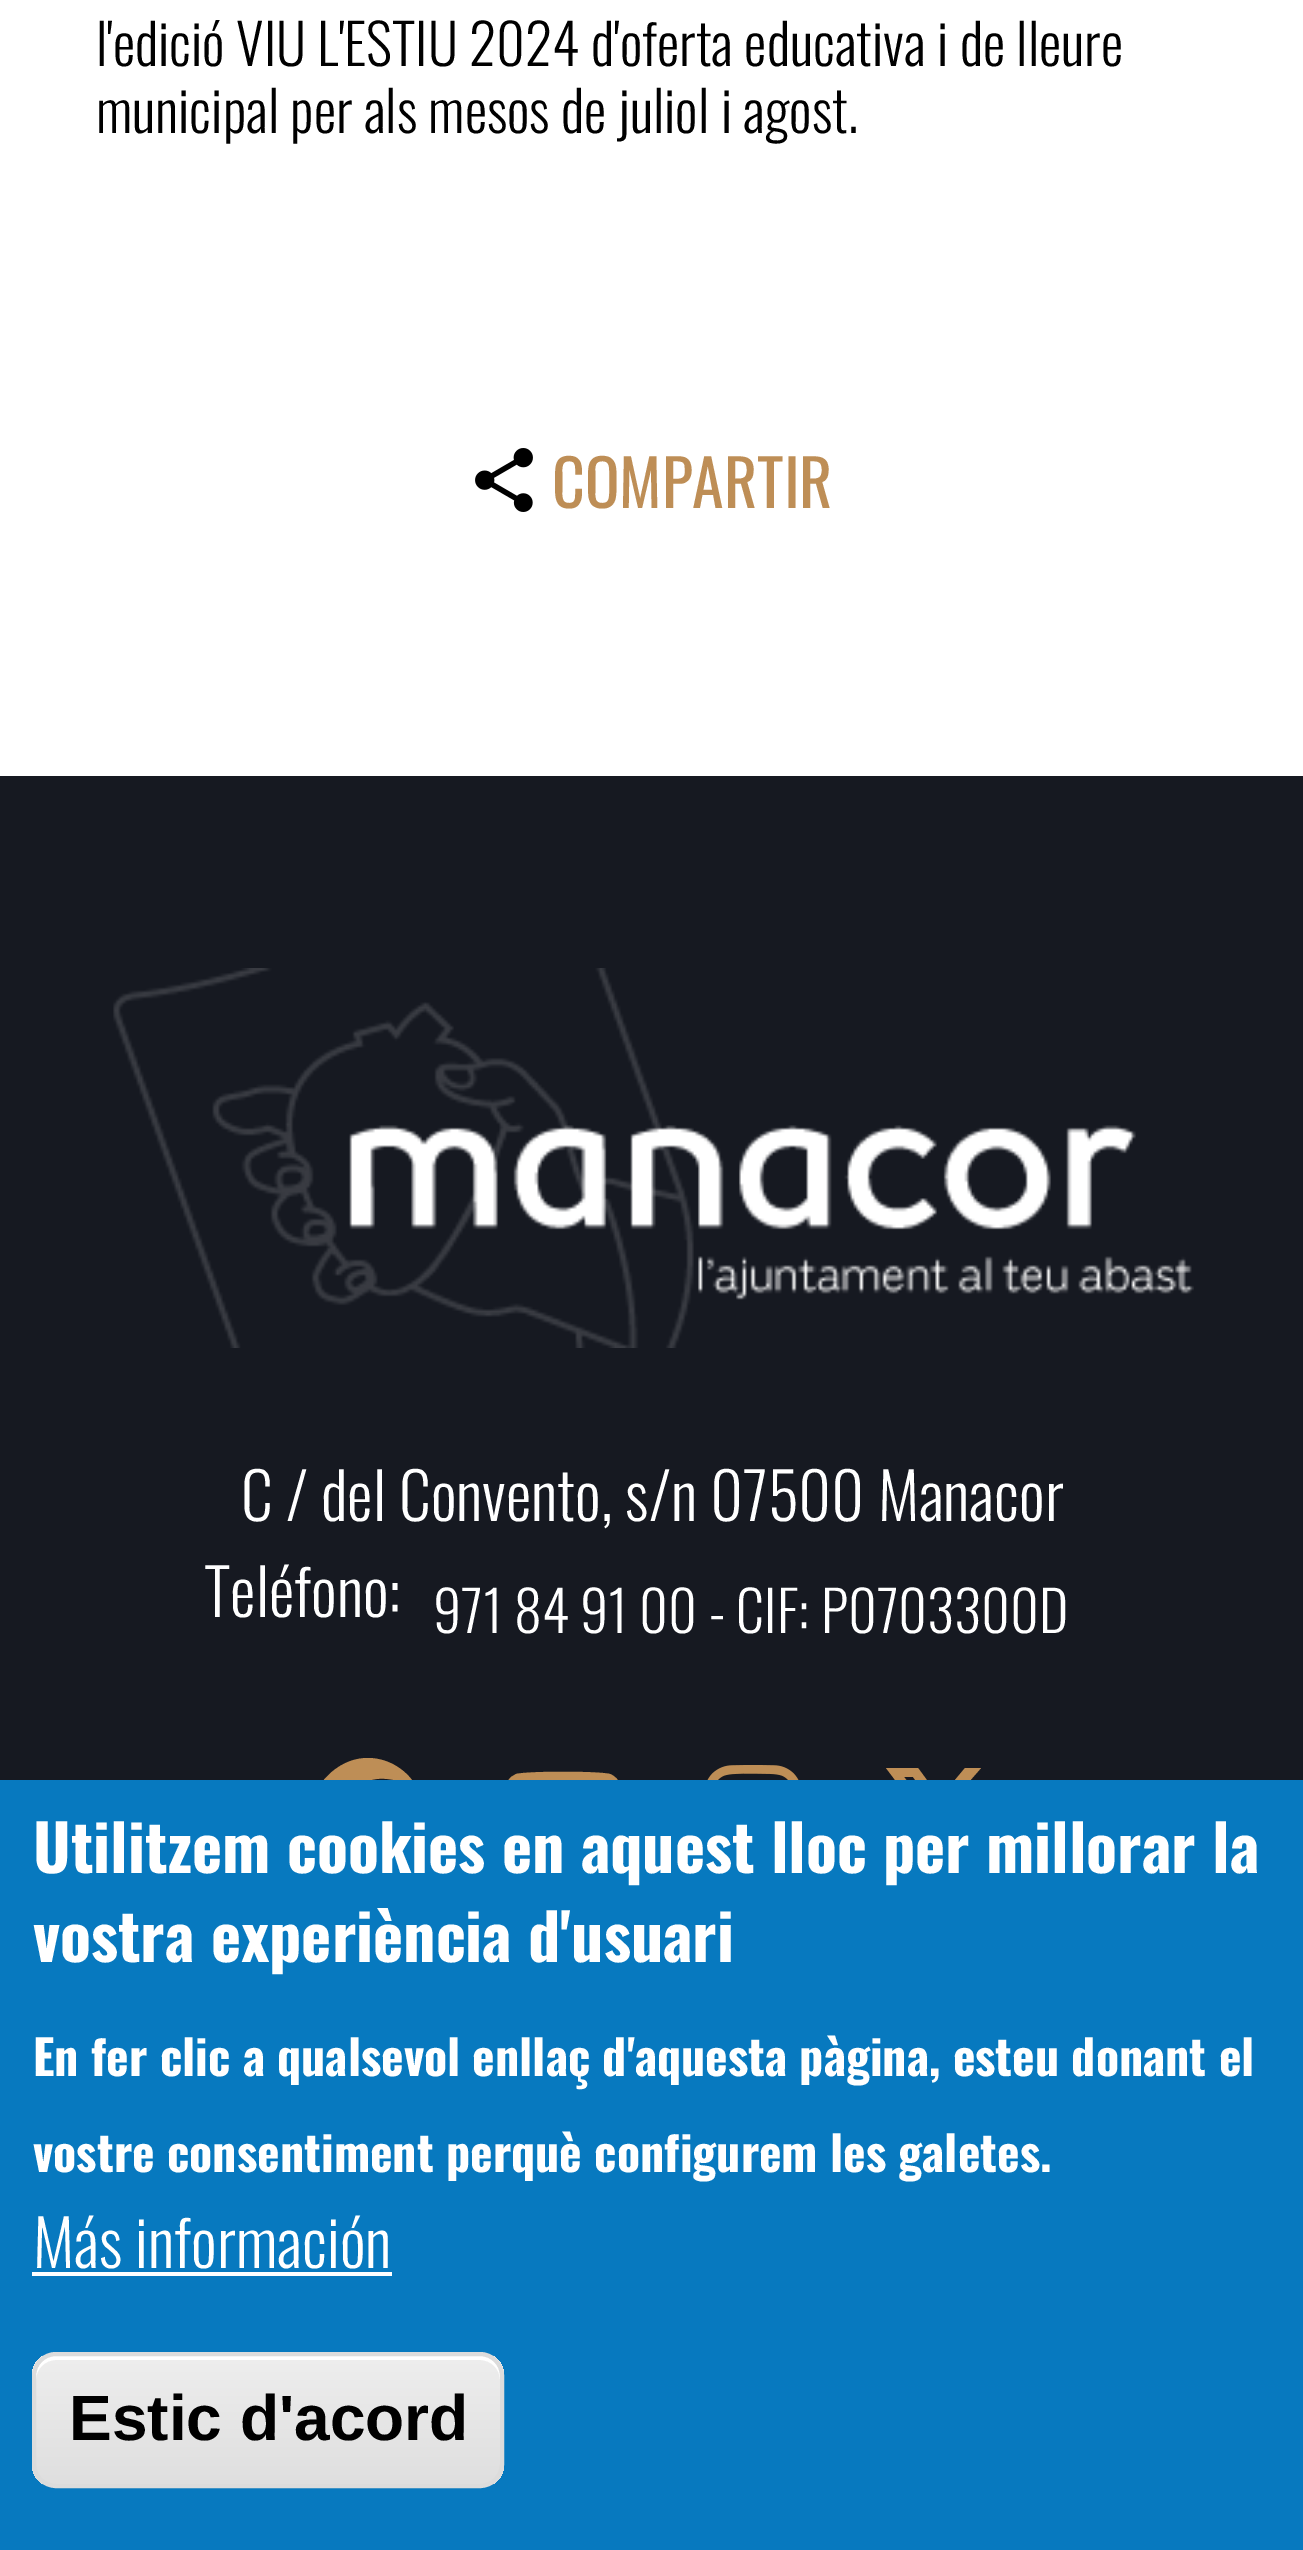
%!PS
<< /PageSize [1303 2550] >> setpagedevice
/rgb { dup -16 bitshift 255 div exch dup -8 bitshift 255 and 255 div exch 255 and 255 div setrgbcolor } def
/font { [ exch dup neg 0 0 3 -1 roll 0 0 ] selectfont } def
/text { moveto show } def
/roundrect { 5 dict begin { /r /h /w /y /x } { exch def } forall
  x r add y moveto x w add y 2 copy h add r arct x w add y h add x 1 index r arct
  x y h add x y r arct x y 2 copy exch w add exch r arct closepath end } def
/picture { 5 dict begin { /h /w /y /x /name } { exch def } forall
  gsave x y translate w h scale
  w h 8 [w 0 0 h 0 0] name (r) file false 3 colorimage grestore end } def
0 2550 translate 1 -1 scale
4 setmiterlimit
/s1 { /Oswald-Light 56 font 16#000000 rgb } def
/s2 { /Oswald-Regular 64 font 16#BE8E56 rgb } def
/s3 { /Oswald-Light 64 font 16#FFFFFF rgb } def
/s4 { /Oswald-Light 56 font 16#FFFFFF rgb } def
/s5 { /Oswald-Bold 64 font 16#FFFFFF rgb } def
/s6 { /Oswald-Bold 48 font 16#FFFFFF rgb } def
/s7 { /LiberationSans-Bold 64 font 16#000000 rgb } def
16#161921 rgb
0 0 1303 2550 rectfill
16#FFFFFF rgb
0 0 1303 776 rectfill
s1
(l'edició VIU L'ESTIU 2024 d'oferta educativa i de lleure) 96 66 text
(municipal per als mesos de juliol i agost.) 96 133 text
(pic1.raw) 475 448 58 64 picture
s2
(COMPARTIR) 552 508 text
(pic2.raw) 113 968 1081 380 picture
s3
(C / del Convento, s/n 07500 Manacor) 241 1521 text
(Teléfono:) 204 1617 text
s4
(971 84 91 00 - CIF: P0703300D) 433 1633 text
16#BE8E56 rgb
424 1814 moveto 423 1770 374 1742 337 1768 curveto 328 1774 321 1782 316 1792 curveto 311 1805 311 1820 315 1833 curveto 321 1850 336 1864 354 1868 curveto 354 1831 lineto 343 1831 lineto 343 1814 lineto 354 1814 lineto 354 1807 354 1801 356 1794 curveto 361 1778 380 1777 394 1780 curveto 394 1796 lineto 377 1794 375 1798 375 1814 curveto 393 1814 lineto 390 1831 lineto 375 1831 lineto 375 1870 lineto 403 1865 423 1843 424 1814 curveto closepath fill
620 1785 moveto 619 1780 615 1776 610 1774 curveto 598 1771 528 1771 516 1774 curveto 511 1777 lineto 509 1779 507 1782 506 1785 curveto 502 1796 502 1832 506 1843 curveto 507 1848 511 1852 516 1854 curveto 529 1857 597 1857 610 1854 curveto 612 1853 614 1852 616 1850 curveto 618 1848 620 1846 620 1843 curveto 624 1831 623 1798 620 1785 curveto closepath 551 1832 moveto 551 1796 lineto 551 1832 lineto 551 1796 lineto 582 1814 lineto closepath fill
(pic3.raw) 707 1765 92 15 picture
965 1768 moveto 981 1768 lineto 965 1768 lineto 981 1768 lineto 947 1807 lineto 987 1860 lineto 955 1860 lineto 931 1828 lineto 903 1860 lineto 888 1860 lineto 924 1818 lineto 886 1768 lineto 918 1768 lineto 940 1798 lineto closepath 960 1850 moveto 968 1850 lineto 960 1850 lineto 968 1850 lineto 913 1777 lineto 904 1777 lineto closepath fill
16#0779BF rgb
0 1780 1303 770 rectfill
s5
(Utilitzem cookies en aquest lloc per millorar la) 33 1873 text
(vostra experiència d'usuari) 33 1962 text
s6
(En fer clic a qualsevol enllaç d'aquesta pàgina, esteu donant el) 33 2076 text
(vostre consentiment perquè configurem les galetes.) 33 2172 text
s3
(Más información) 33 2268 text
32 2272 360 4 rectfill
gsave
32 2352 472 136 24 roundrect clip newpath
gsave 32 2356 moveto 504 2356 lineto 504 2484 lineto 32 2484 lineto closepath clip newpath
<< /ShadingType 2 /ColorSpace /DeviceRGB /Coords [268 2356 268 2484] /Extend [true true] /Function << /FunctionType 3 /Domain [0 1] /Functions [<< /FunctionType 2 /Domain [0 1] /C0 [0.929 0.929 0.929] /C1 [0.929 0.929 0.929] /N 1 >> << /FunctionType 2 /Domain [0 1] /C0 [0.929 0.929 0.929] /C1 [0.875 0.875 0.875] /N 1 >>] /Bounds [0.05] /Encode [0 1 0 1] >> >> shfill grestore
grestore
56 2360 moveto 480 2360 lineto 491 2360 500 2369 500 2380 curveto 500 2376 lineto 500 2365 491 2356 480 2356 curveto 56 2356 lineto 45 2356 36 2365 36 2376 curveto 36 2380 lineto 36 2369 45 2360 56 2360 curveto closepath fill
16#DCDCDC rgb
4 setlinewidth
34 2354 468 132 22 roundrect stroke
s7
(Estic d'acord) 69 2440 text
showpage
